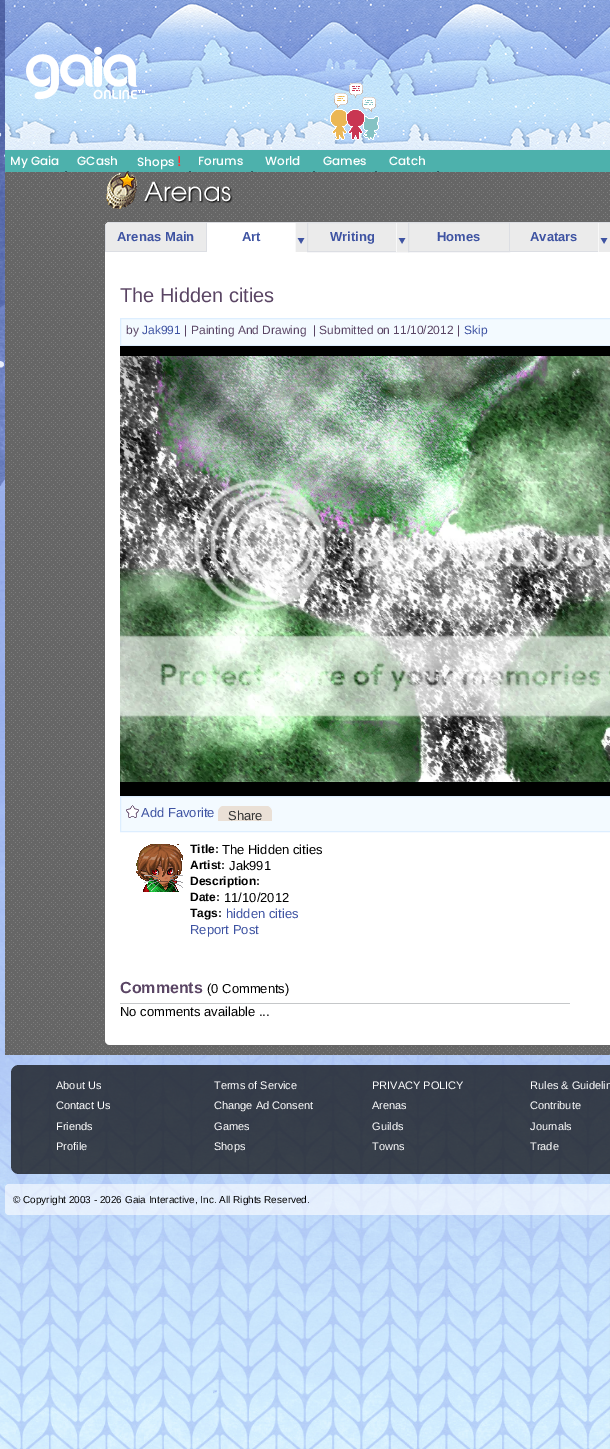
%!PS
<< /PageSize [610 1449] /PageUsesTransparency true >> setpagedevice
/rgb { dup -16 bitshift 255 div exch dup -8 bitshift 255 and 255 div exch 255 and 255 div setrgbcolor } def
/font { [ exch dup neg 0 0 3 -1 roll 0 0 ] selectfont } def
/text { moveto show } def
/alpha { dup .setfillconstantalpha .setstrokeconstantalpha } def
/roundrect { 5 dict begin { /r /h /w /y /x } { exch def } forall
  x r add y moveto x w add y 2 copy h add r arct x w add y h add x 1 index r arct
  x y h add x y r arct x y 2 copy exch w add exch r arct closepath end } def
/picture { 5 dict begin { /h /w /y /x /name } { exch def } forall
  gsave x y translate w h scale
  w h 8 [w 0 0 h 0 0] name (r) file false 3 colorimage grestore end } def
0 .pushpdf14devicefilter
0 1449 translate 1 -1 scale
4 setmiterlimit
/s1 { /Poppins-Medium 12 font 16#FFFFFF rgb } def
/s2 { /Poppins-Medium 14 font 16#FF3333 rgb } def
/s3 { /LiberationSans-Bold 13 font 16#3E53A2 rgb } def
/s4 { /LiberationSans-Regular 20 font 16#5A4564 rgb } def
/s5 { /LiberationSans-Regular 12 font 16#5A4564 rgb } def
/s6 { /LiberationSans-Regular 12 font 16#3E53A2 rgb } def
/s7 { /LiberationSans-Regular 13 font 16#3E53A2 rgb } def
/s8 { /LiberationSans-Regular 13 font 16#333333 rgb } def
/s9 { /LiberationSans-Bold 12 font 16#000000 rgb } def
/s10 { /LiberationSans-Regular 13 font 16#000000 rgb } def
/s11 { /LiberationSans-Bold 16 font 16#5A4564 rgb } def
/s12 { /LiberationSans-Regular 11 font 16#FFFFFF rgb } def
/s13 { /LiberationSans-Regular 10 font 16#000000 rgb } def
16#FFFFFF rgb
0 0 610 1449 rectfill
(pic1.raw) 609 1055 1 394 picture
(pic2.raw) 0 0 610 1449 picture
(pic3.raw) 5 0 605 150 picture
(pic4.raw) 5 0 605 150 picture
(pic5.raw) 26 46 119 54 picture
(pic6.raw) 330 83 49 57 picture
16#4DB1AC rgb
5 150 605 22 rectfill
s1
(My Gaia) 10 165 text
(GCash) 77 165 text
(Shops) 137 166 text
s2
(!) 177 166 text
s1
(Forums) 198 165 text
(World) 265 165 text
(Games) 323 165 text
(Catch) 389 165 text
16#265F62 rgb
65 171 2 1 rectfill
127 171 2 1 rectfill
189 171 2 1 rectfill
251 171 2 1 rectfill
313 171 2 1 rectfill
375 171 2 1 rectfill
437 171 2 1 rectfill
(pic7.raw) 5 172 605 883 picture
(pic8.raw) 106 172 127 37 picture
16#FFFFFF rgb
105 222 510 823 5 roundrect fill
16#EBEBEB rgb
110 222 moveto 207 222 lineto 207 252 lineto 105 252 lineto 105 227 lineto 105 224 107 222 110 222 curveto closepath fill
16#DCDEE3 rgb
110 222 moveto 107 223 lineto 206 223 lineto 206 251 lineto 106 251 lineto 106 224 lineto 105 225 105 226 105 227 curveto 105 252 lineto 207 252 lineto 207 222 lineto closepath fill
s3
(Arenas Main) 117 241 text
16#DCDEE3 rgb
206 222 102 1 rectfill
s3
(Art) 242 241 text
(pic9.raw) 295 223 12 29 picture
16#EBEBEB rgb
308 223 88 28 rectfill
16#DCDEE3 rgb
307.5 222.5 101 29 rectstroke
s3
(Writing) 330 241 text
(pic9.raw) 396 223 12 29 picture
16#EBEBEB rgb
408.5 222.5 moveto 509.5 222.5 lineto 509.5 251.5 lineto 408.5 251.5 lineto closepath gsave fill grestore
16#DCDEE3 rgb
stroke
s3
(Homes) 437 241 text
16#EBEBEB rgb
510 223 88 28 rectfill
16#DCDEE3 rgb
509 222 101 1 rectfill
509 251 89 1 rectfill
s3
(Avatars) 530 241 text
(pic9.raw) 598 223 12 29 picture
s4
(The Hidden cities) 120 302 text
16#F3FAFF rgb
120.5 318.5 moveto 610.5 318.5 lineto 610.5 345.5 lineto 120.5 345.5 lineto closepath gsave fill grestore
16#DDEEFF rgb
stroke
s5
(by) 126 334 text
s6
(Jak991) 142 334 text
s5
(|) 184 334 text
(Painting And Drawing) 191 334 text
(| Submitted on 11/10/2012 |) 313 334 text
s6
(Skip) 464 334 text
16#000000 rgb
120 346 490 450 rectfill
(pic10.raw) 120 356 490 426 picture
16#F3FAFF rgb
120.5 796.5 moveto 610.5 796.5 lineto 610.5 831.5 lineto 120.5 831.5 lineto closepath gsave fill grestore
16#DDEEFF rgb
stroke
(pic11.raw) 126 805 13 13 picture
s7
(Add Favorite) 141 817 text
(pic12.raw) 251 806 21 15 picture
(pic13.raw) 218 806 33 15 picture
s8
(Share) 228 820 text
(pic14.raw) 136 844 47 48 picture
s9
(Title:) 190 853 text
s10
(The Hidden cities) 222 854 text
s9
(Artist:) 190 869 text
s10
(Jak991) 229 870 text
s9
(Description:) 190 885 text
(Date:) 190 901 text
s10
(11/10/2012) 224 902 text
s9
(Tags:) 190 917 text
s7
(hidden cities) 226 918 text
(Report Post) 190 934 text
s11
(Comments) 120 993 text
s10
(\(0 Comments\)) 207 993 text
16#C5C7C9 rgb
120 1003 450 1 rectfill
s10
(No comments available ...) 120 1016 text
0.7 alpha
11 1065 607 109 8 roundrect fill
1 alpha
s12
(About Us) 56 1089 text
(Terms of Service) 214 1089 text
(PRIVACY POLICY) 372 1089 text
(Rules & Guidelin) 530 1089 text
(Contact Us) 56 1109 text
(Change Ad Consent) 214 1109 text
(Arenas) 372 1109 text
(Contribute) 530 1109 text
(Friends) 56 1130 text
(Games) 214 1130 text
(Guilds) 372 1130 text
(Journals) 530 1130 text
(Profile) 56 1150 text
(Shops) 214 1150 text
(Towns) 372 1150 text
(Trade) 530 1150 text
0.6 alpha
5 1184 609 31 4 roundrect fill
1 alpha
s13
(© Copyright 2003 - 2026 Gaia Interactive, Inc. All Rights Reserved.) 13 1203 text
.poppdf14devicefilter showpage
